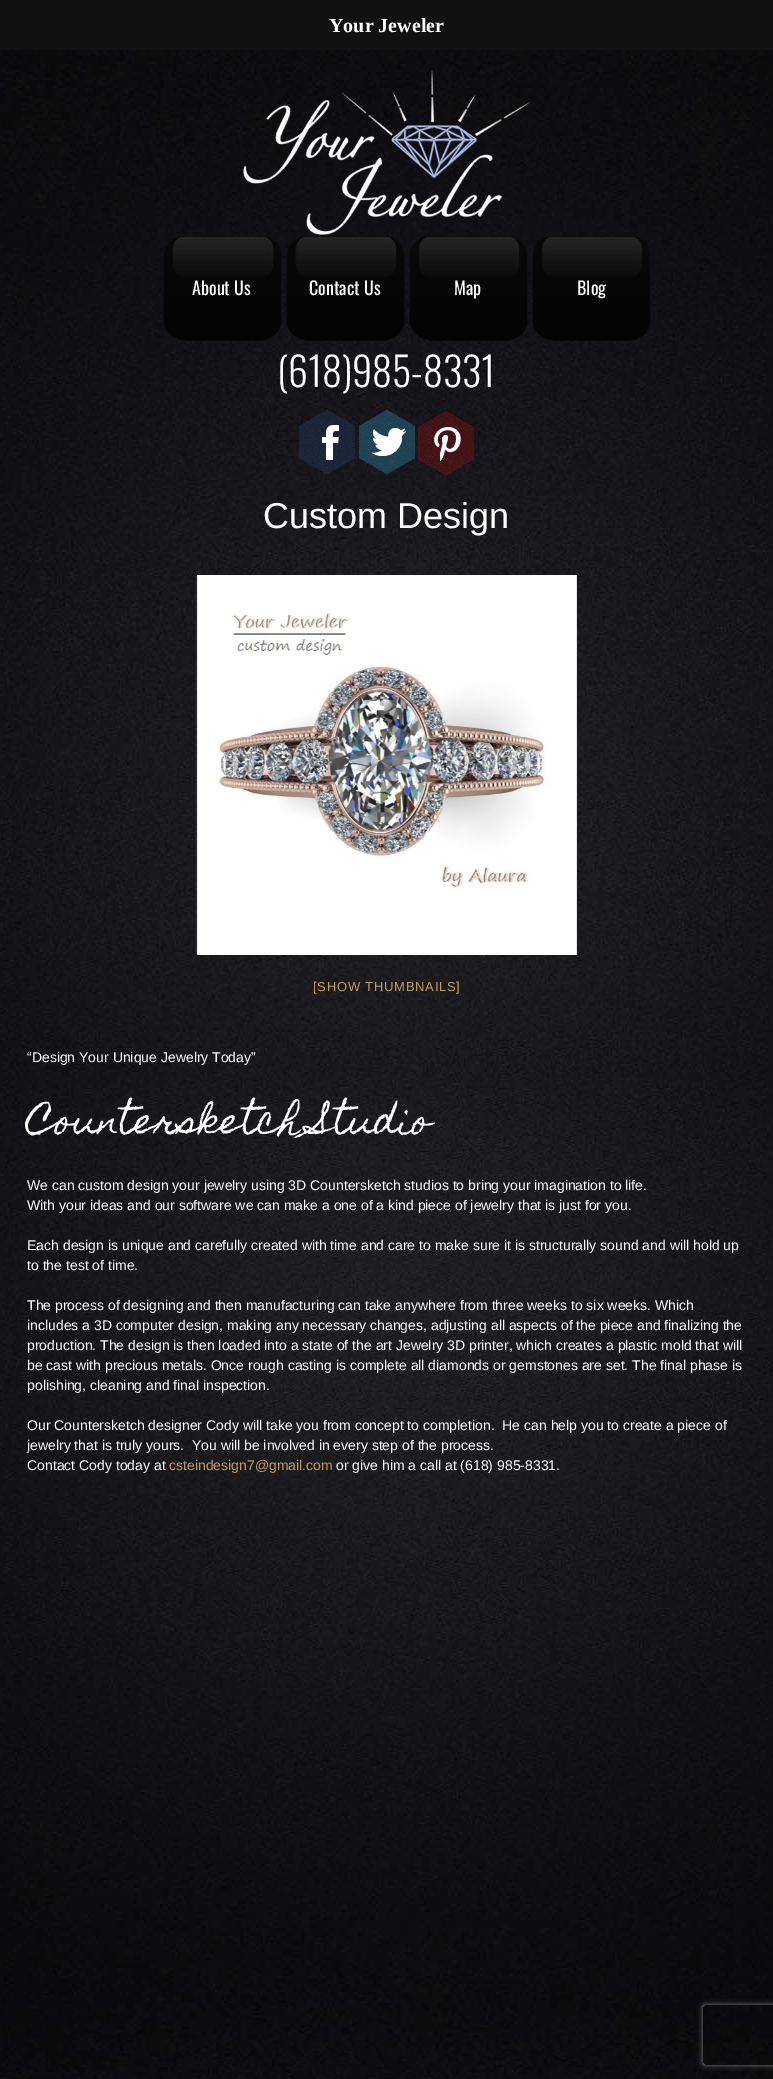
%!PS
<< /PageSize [773 2079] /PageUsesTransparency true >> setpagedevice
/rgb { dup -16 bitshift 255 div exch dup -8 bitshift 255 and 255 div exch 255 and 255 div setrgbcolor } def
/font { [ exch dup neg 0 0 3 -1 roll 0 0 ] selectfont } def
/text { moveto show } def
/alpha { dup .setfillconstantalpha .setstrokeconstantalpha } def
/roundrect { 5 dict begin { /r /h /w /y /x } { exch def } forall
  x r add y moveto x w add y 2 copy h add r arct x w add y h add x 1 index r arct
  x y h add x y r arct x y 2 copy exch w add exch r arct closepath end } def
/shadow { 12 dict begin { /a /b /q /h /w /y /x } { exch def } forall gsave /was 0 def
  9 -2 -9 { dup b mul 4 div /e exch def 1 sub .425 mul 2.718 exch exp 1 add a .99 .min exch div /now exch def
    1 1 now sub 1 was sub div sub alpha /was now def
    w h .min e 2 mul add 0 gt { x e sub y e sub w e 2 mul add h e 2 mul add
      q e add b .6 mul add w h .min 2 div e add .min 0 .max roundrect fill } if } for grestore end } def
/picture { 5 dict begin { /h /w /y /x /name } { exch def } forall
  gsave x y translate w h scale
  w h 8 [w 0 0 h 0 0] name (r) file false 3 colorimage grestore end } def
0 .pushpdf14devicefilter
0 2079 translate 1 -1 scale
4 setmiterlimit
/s1 { /LiberationSerif-Bold 20 font 16#FFFFFF rgb } def
/s2 { /Oswald-Regular 18 font 16#FFFFFF rgb } def
/s3 { /Oswald-Light 40 font 16#FFFFFF rgb } def
/s4 { /LiberationSans-Regular 36 font 16#FFFFFF rgb } def
/s5 { /LiberationSans-Regular 14 font 16#FFFFFF rgb } def
/s6 { /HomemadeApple-Regular 35 font 16#FFFFFF rgb } def
/s7 { /LiberationSans-Regular 14 font 16#C39B57 rgb } def
16#FFFFFF rgb
0 0 773 2079 rectfill
(pic1.raw) 0 50 773 2029 picture
16#111111 rgb
0 0 773 50 rectfill
s1
(Your Jeweler) 329 32 text
(pic2.raw) 243 70 288 165 picture
(pic3.raw) 163 236 119 105 picture
s2
(About Us) 192 295 text
(pic4.raw) 286 235 119 106 picture
(Contact Us) 309 295 text
(pic5.raw) 409 235 119 106 picture
(Map) 454 295 text
(pic6.raw) 532 235 119 106 picture
(Blog) 577 295 text
s3
(\(618\)985-8331) 277 387 text
(pic7.raw) 299 410 56 64 picture
(pic8.raw) 359 409 56 66 picture
(pic9.raw) 418 410 56 66 picture
s4
(Custom Design) 263 528 text
(pic10.raw) 196 575 381 380 picture
/LiberationSans-Regular 13 font
16#C39B57 rgb
313 991 moveto 0.75 0 ([SHOW THUMBNAILS]) ashow
s5
(“Design Your Unique Jewelry Today”) 27 1062 text
s6
(Countersketch Studio) 27 1133 text
s5
(We can custom design your jewelry using 3D Countersketch studios to bring your imagination to life.) 27 1190 text
(With your ideas and our software we can make a one of a kind piece of jewelry that is just for you.) 27 1210 text
(Each design is unique and carefully created with time and care to make sure it is structurally sound and will hold up) 27 1250 text
(to the test of time.) 27 1270 text
(The process of designing and then manufacturing can take anywhere from three weeks to six weeks. Which) 27 1310 text
(includes a 3D computer design, making any necessary changes, adjusting all aspects of the piece and finalizing the) 27 1330 text
(production. The design is then loaded into a state of the art Jewelry 3D printer, which creates a plastic mold that will) 27 1350 text
(be cast with precious metals. Once rough casting is complete all diamonds or gemstones are set. The final phase is) 27 1370 text
(polishing, cleaning and final inspection.) 27 1390 text
(Our Countersketch designer Cody will take you from concept to completion.  He can help you to create a piece of) 27 1430 text
(jewelry that is truly yours.  You will be involved in every step of the process.) 27 1450 text
(Contact Cody today at) 27 1470 text
s7
(csteindesign7@gmail.com) 169 1470 text
s5
(or give him a call at \(618\) 985-8331.) 336 1470 text
gsave
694 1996 moveto 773 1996 lineto 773 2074 lineto 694 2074 lineto closepath 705 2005 moveto 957 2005 lineto 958 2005 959 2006 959 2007 curveto 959 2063 lineto 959 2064 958 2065 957 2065 curveto 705 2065 lineto 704 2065 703 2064 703 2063 curveto 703 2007 lineto 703 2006 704 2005 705 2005 curveto closepath eoclip newpath
16#808080 rgb
703 2005 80 60 2 2.5 1 shadow
grestore
.poppdf14devicefilter showpage
